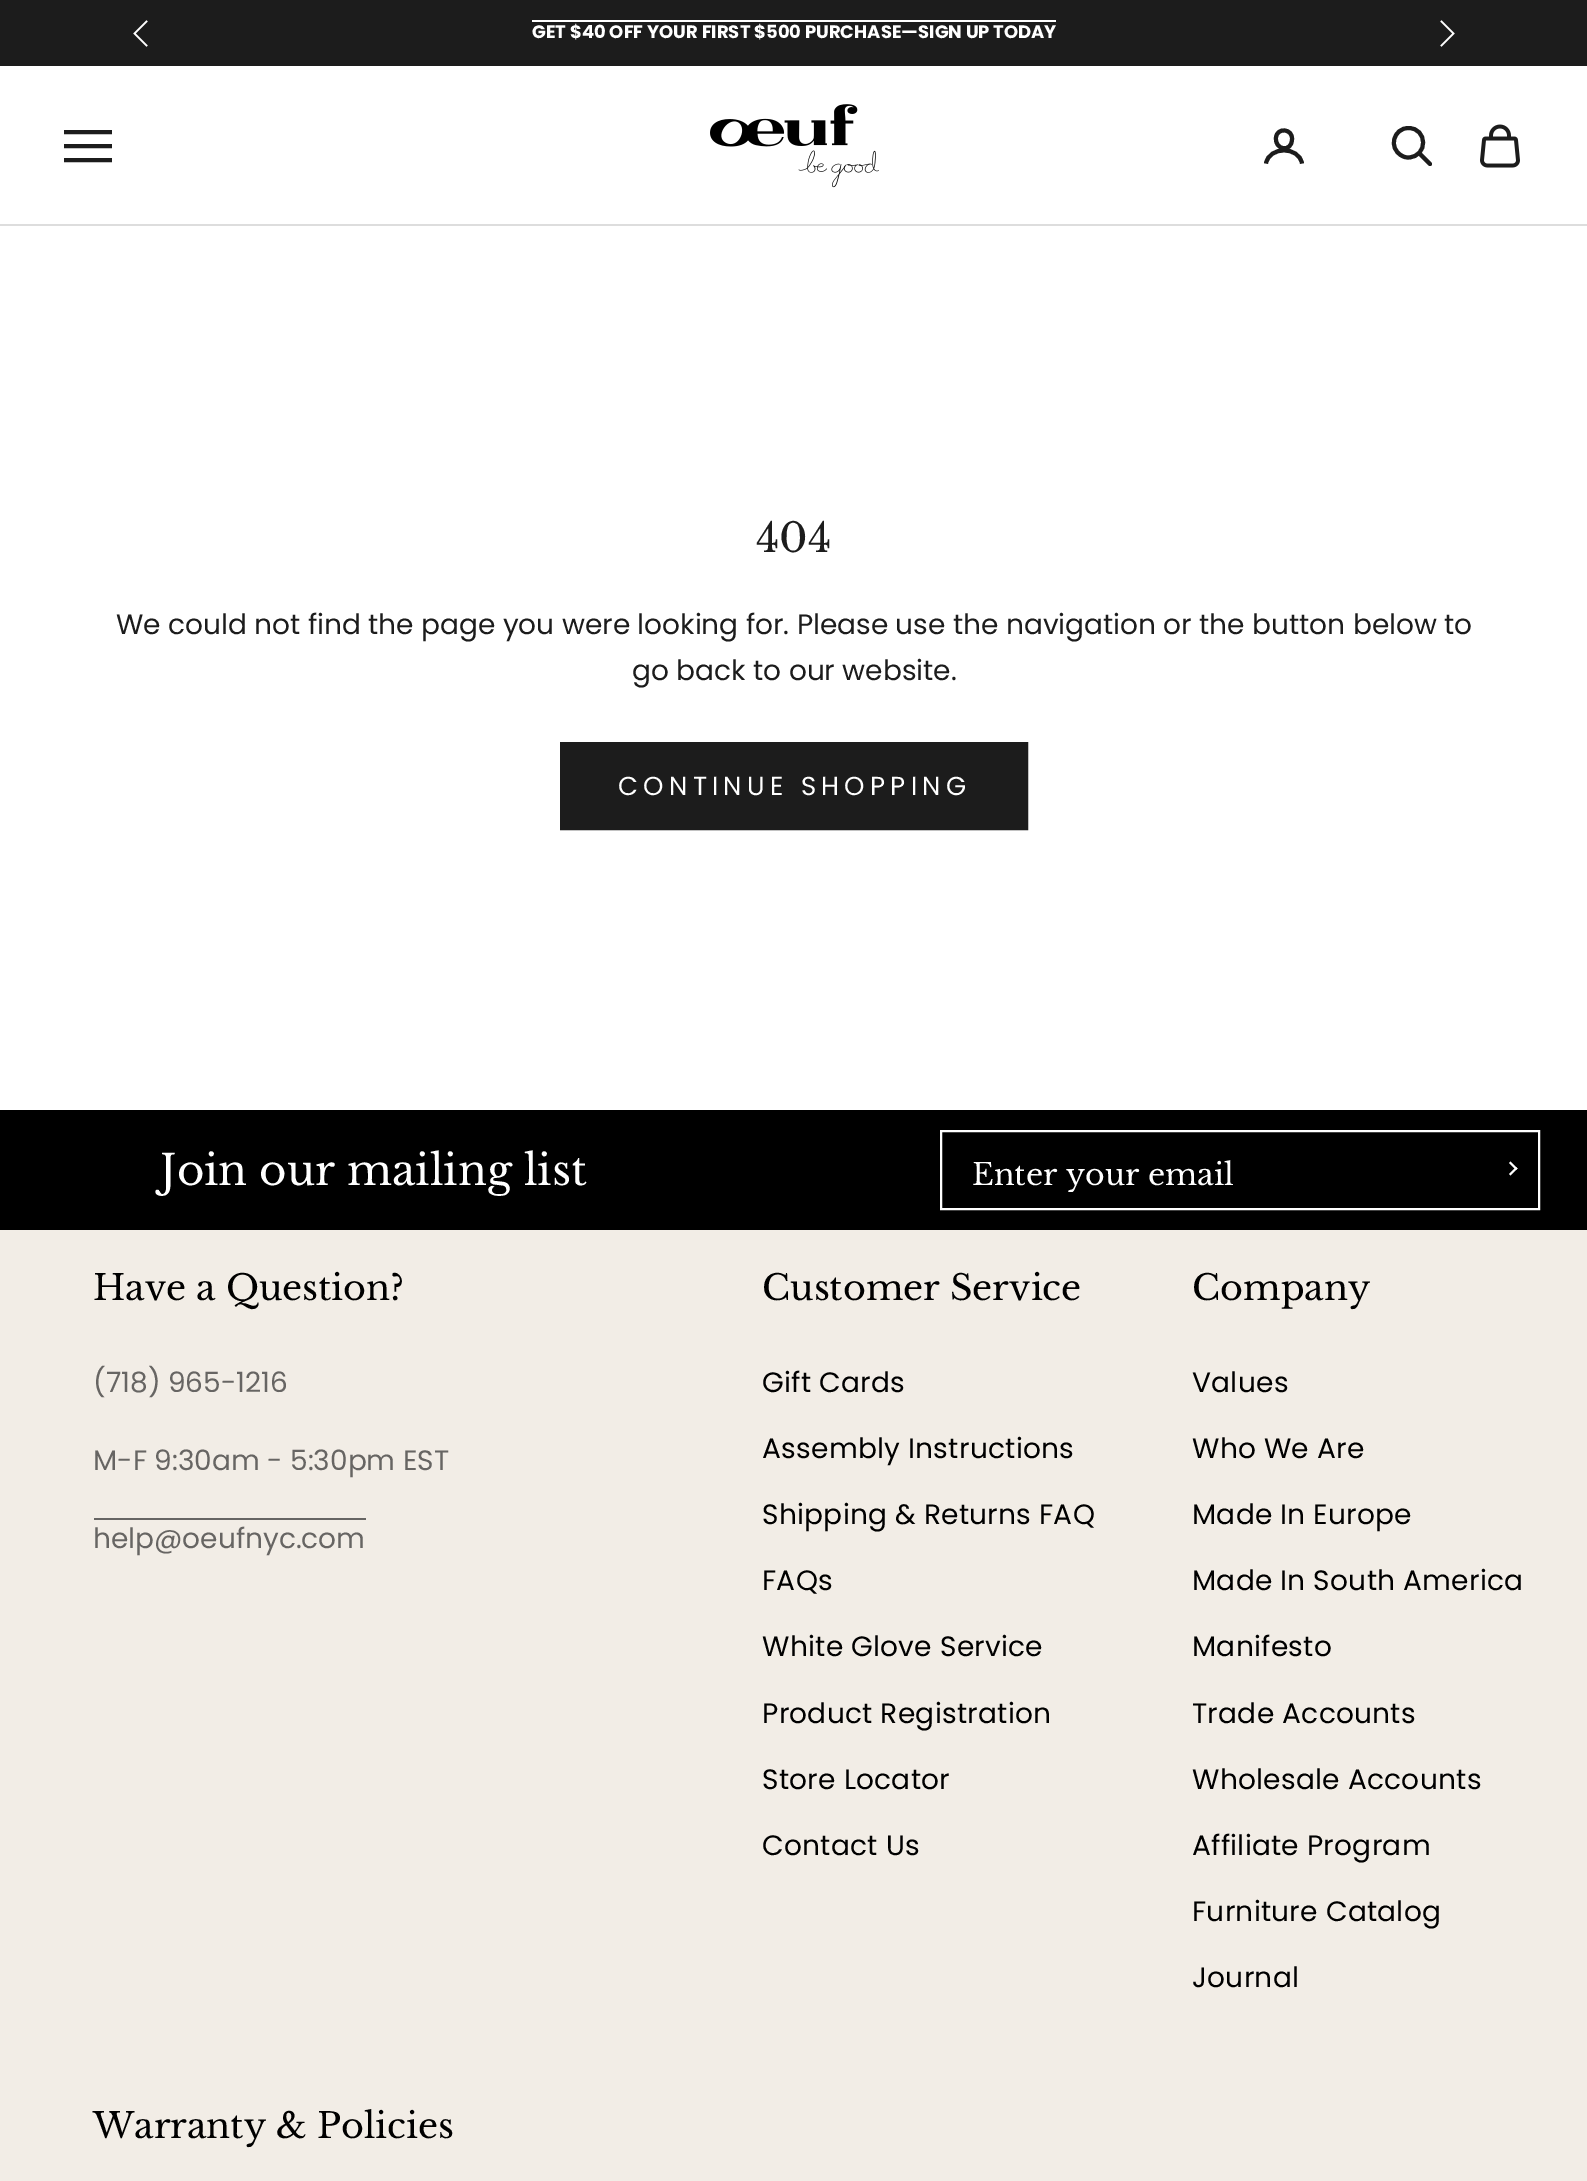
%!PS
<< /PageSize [1587 2181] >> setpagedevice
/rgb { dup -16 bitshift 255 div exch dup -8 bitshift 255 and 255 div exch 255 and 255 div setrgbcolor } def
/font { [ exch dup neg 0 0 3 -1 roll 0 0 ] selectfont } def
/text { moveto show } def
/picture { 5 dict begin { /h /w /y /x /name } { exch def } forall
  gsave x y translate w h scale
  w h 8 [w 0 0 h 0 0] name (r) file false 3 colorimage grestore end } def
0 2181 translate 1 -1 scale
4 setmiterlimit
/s1 { /Poppins-Bold 18 font 16#FFFFFF rgb } def
/s2 { /LibreBaskerville-Regular 40 font 16#1C1C1C rgb } def
/s3 { /Poppins-Regular 28 font 16#1C1C1C rgb } def
/s4 { /LibreBaskerville-Regular 42 font 16#FFFFFF rgb } def
/s5 { /LibreBaskerville-Regular 30 font 16#FFFFFF rgb } def
/s6 { /LibreBaskerville-Regular 35 font 16#000000 rgb } def
/s7 { /Poppins-Regular 28 font 16#676563 rgb } def
16#FFFFFF rgb
0 0 1587 2181 rectfill
16#1C1C1C rgb
0 0 1587 66 rectfill
16#FFFFFF rgb
1.5 setlinewidth
2 setlinecap
146.5 21.5 moveto 134.5 33.5 lineto 146.5 45.5 lineto stroke
s1
(GET $40 OFF YOUR FIRST $500 PURCHASE—SIGN UP TODAY) 532 38 text
532 20 524 2 rectfill
1441.5 45.5 moveto 1453.5 33.5 lineto 1441.5 21.5 lineto stroke
16#DDDDDD rgb
0 224 1587 2 rectfill
16#1C1C1C rgb
4 setlinewidth
66 160 moveto 110 160 lineto 66 146 moveto 110 146 lineto 66 132 moveto 110 132 lineto stroke
(pic1.raw) 710 104 169 84 picture
1 setlinecap
1 setlinejoin
1292 139.5 moveto 1291.5 153 1274.5 150 1276 137.5 curveto 1277 127 1293 128.5 1292 139.5 curveto closepath stroke
0 setlinecap
0 setlinejoin
1266 163.5 moveto 1269 146 1299 146 1302 163.5 curveto stroke
1408.5 128 moveto 1393.5 128 1388 148 1401.5 155.5 curveto 1403.5 157 1406 157.5 1408.5 157.5 curveto 1428.5 156.5 1427.5 128 1408.5 128 curveto closepath stroke
1 setlinecap
1419.5 153.5 moveto 1430 164 lineto stroke
(pic2.raw) 1480 124 40 44 picture
s2
(404) 756 552 text
s3
(We could not find the page you were looking for. Please use the navigation or the button below to) 116 634 text
(go back to our website.) 632 680 text
561 743 moveto 1027 743 lineto 1027 829 lineto 561 829 lineto closepath gsave fill grestore
2 setlinewidth
0 setlinecap
stroke
/Poppins-Regular 26 font
16#FFFFFF rgb
618 795 moveto 5.25 0 (CONTINUE SHOPPING) ashow
16#F2EDE6 rgb
0 1230 1587 951 rectfill
16#000000 rgb
0 1110 1587 120 rectfill
s4
(Join our mailing list) 160 1185 text
941 1131 598 78 rectstroke
gsave
972 1154 536 38 rectclip
s5
(Enter your email) 972 1185 text
grestore
1516 1170 moveto 1509 1163 lineto 1510.5 1161.5 lineto 1517.5 1168.5 lineto closepath fill
1510.5 1175.5 moveto 1509 1174 lineto 1516 1167 lineto 1517.5 1168.5 lineto closepath fill
s6
(Have a Question?) 93 1300 text
s7
(\(718\) 965-1216) 93 1392 text
(M-F 9:30am - 5:30pm EST) 93 1470 text
(help@oeufnyc.com) 93 1548 text
94 1518 272 2 rectfill
s6
(Customer Service) 762 1300 text
/Poppins-Regular 28 font
762 1392 moveto 0.3 0 (Gift Cards) ashow
762 1458 moveto 0.3 0 (Assembly Instructions) ashow
762 1524 moveto 0.3 0 (Shipping & Returns FAQ) ashow
762 1590 moveto 0.3 0 (FAQs) ashow
762 1656 moveto 0.3 0 (White Glove Service) ashow
762 1723 moveto 0.3 0 (Product Registration) ashow
762 1789 moveto 0.3 0 (Store Locator) ashow
762 1855 moveto 0.3 0 (Contact Us) ashow
s6
(Company) 1192 1300 text
/Poppins-Regular 28 font
1192 1392 moveto 0.3 0 (Values) ashow
1192 1458 moveto 0.3 0 (Who We Are) ashow
1192 1524 moveto 0.3 0 (Made In Europe) ashow
1192 1590 moveto 0.3 0 (Made In South America) ashow
1192 1656 moveto 0.3 0 (Manifesto) ashow
1192 1723 moveto 0.3 0 (Trade Accounts) ashow
1192 1789 moveto 0.3 0 (Wholesale Accounts) ashow
1192 1855 moveto 0.3 0 (Affiliate Program) ashow
1192 1921 moveto 0.3 0 (Furniture Catalog) ashow
1192 1987 moveto 0.3 0 (Journal) ashow
s6
(Warranty & Policies) 93 2138 text
showpage
